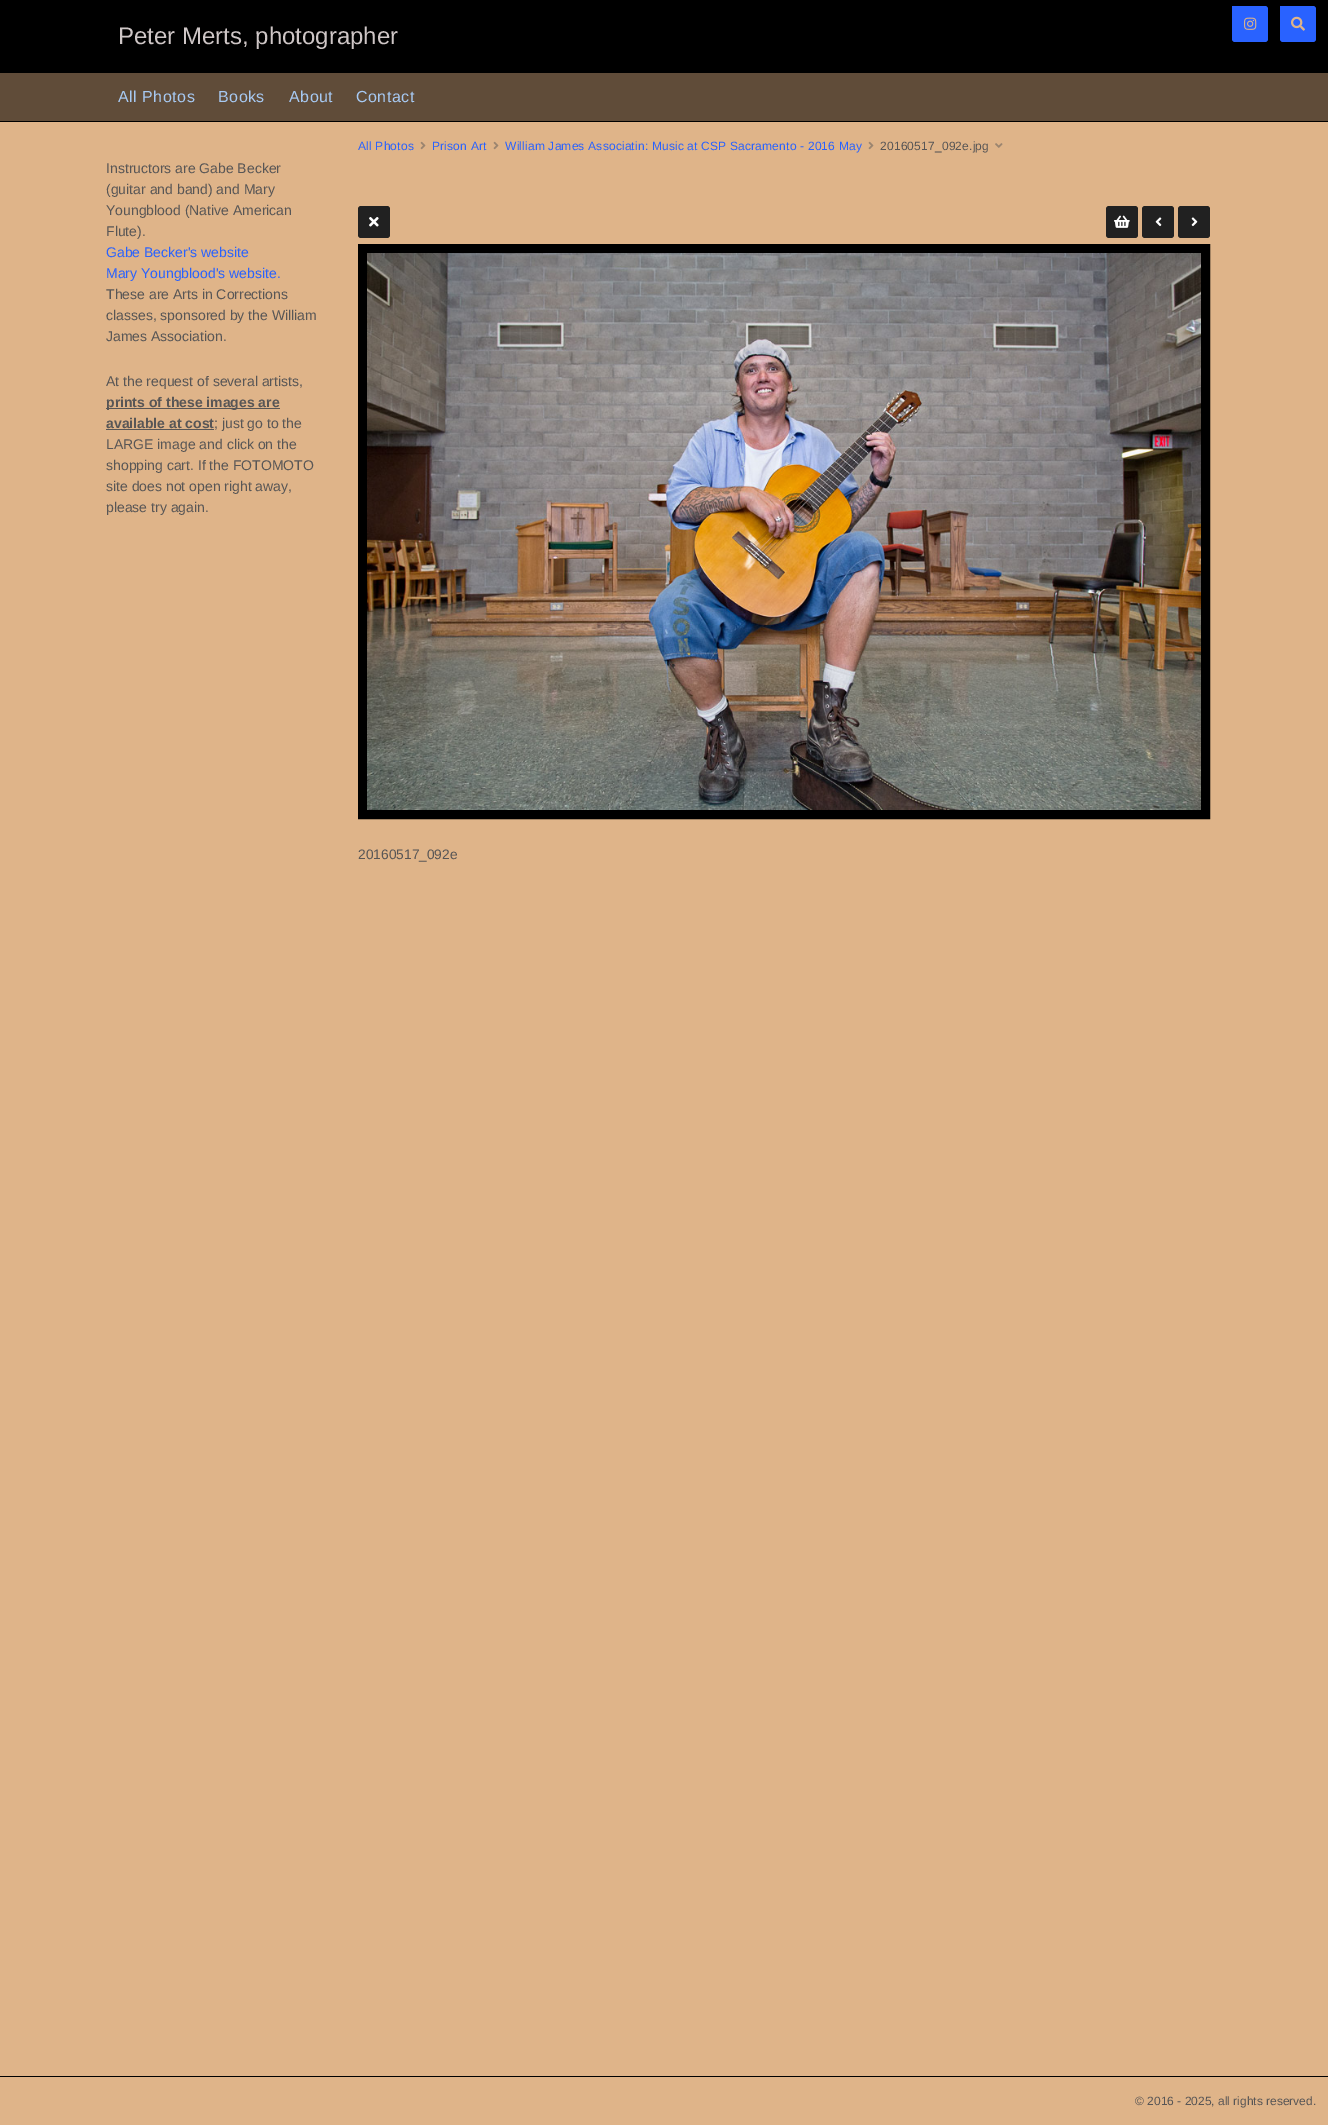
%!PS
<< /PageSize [1328 2125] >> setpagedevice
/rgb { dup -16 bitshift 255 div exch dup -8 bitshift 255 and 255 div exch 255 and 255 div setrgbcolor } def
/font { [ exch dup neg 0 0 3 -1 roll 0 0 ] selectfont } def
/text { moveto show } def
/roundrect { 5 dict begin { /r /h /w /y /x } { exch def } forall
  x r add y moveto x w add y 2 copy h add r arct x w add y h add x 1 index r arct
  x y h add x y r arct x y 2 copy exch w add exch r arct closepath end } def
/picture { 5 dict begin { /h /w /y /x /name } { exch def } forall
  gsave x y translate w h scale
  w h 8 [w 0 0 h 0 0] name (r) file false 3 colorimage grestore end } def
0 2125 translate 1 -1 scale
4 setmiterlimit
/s1 { /LiberationSans-Regular 24 font 16#CEC6C6 rgb } def
/s2 { /LiberationSans-Regular 14 font 16#585656 rgb } def
/s3 { /LiberationSans-Regular 14 font 16#2962FF rgb } def
/s4 { /LiberationSans-Bold 14 font 16#585656 rgb } def
/s5 { /LiberationSans-Regular 13.75 font 16#585656 rgb } def
/s6 { /LiberationSans-Regular 12 font 16#585656 rgb } def
16#DFB489 rgb
0 0 1328 2125 rectfill
16#000000 rgb
0 0 1328 73 rectfill
s1
(Peter Merts, photographer) 118 44 text
16#2962FF rgb
1232 6 moveto 1265 6 lineto 1266.5 6 1268 7.5 1268 9 curveto 1268 39 lineto 1268 40.5 1266.5 42 1265 42 curveto 1235 42 lineto 1233.5 42 1232 40.5 1232 39 curveto closepath fill
(pic1.raw) 1244 17 13 13 picture
1280 6 moveto 1313 6 lineto 1314.5 6 1316 7.5 1316 9 curveto 1316 39 lineto 1316 40.5 1314.5 42 1313 42 curveto 1283 42 lineto 1281.5 42 1280 40.5 1280 39 curveto closepath fill
(pic2.raw) 1291 16 14 15 picture
16#604C39 rgb
0 73 1328 48 rectfill
16#000000 rgb
0 121 1328 1 rectfill
/LiberationSans-Regular 16 font
16#A7C9F2 rgb
118 102 moveto 0.5 0 (All Photos) ashow
218 102 moveto 0.5 0 (Books) ashow
289 102 moveto 0.5 0 (About) ashow
356 102 moveto 0.5 0 (Contact) ashow
s2
(Instructors are Gabe Becker) 106 173 text
(\(guitar and band\) and Mary) 106 194 text
(Youngblood \(Native American) 106 215 text
(Flute\).) 106 236 text
s3
(Gabe Becker's website) 106 257 text
(Mary Youngblood's website.) 106 278 text
s2
(These are Arts in Corrections) 106 299 text
(classes, sponsored by the William) 106 320 text
(James Association.) 106 341 text
(At the request of several artists,) 106 386 text
106 408 174 1 rectfill
s4
(prints of these images are) 106 407 text
(available at cost) 106 428 text
106 429 108 1 rectfill
s2
(; just go to the) 214 428 text
(LARGE image and click on the) 106 449 text
(shopping cart. If the FOTOMOTO) 106 470 text
(site does not open right away,) 106 491 text
(please try again.) 106 512 text
/LiberationSans-Regular 12 font
16#2962FF rgb
358 150 moveto 0.18 0 (All Photos) ashow
(pic3.raw) 420 141 6 9 picture
432 150 moveto 0.18 0 (Prison Art) ashow
(pic3.raw) 493 141 6 9 picture
505 150 moveto 0.18 0 (William James Associatin: Music at CSP Sacramento - 2016 May) ashow
(pic3.raw) 868 141 6 9 picture
16#585656 rgb
880 150 moveto 0.18 0 (20160517_092e.jpg) ashow
(pic4.raw) 995 143 8 5 picture
16#212121 rgb
358 206 32 32 3 roundrect fill
(pic5.raw) 369 217 10 10 picture
1106 206 32 32 3 roundrect fill
(pic6.raw) 1114 215 16 13 picture
1142 206 32 32 3 roundrect fill
(pic7.raw) 1155 217 7 10 picture
1178 206 32 32 3 roundrect fill
(pic8.raw) 1191 217 7 10 picture
16#000000 rgb
9 setlinewidth
362.5 248.5 843 566 rectstroke
(pic9.raw) 367 253 834 557 picture
s5
(20160517_092e) 358 859 text
16#000000 rgb
0 2076 1328 1 rectfill
s6
(© 2016 - 2025, all rights reserved.) 1135 2105 text
showpage
